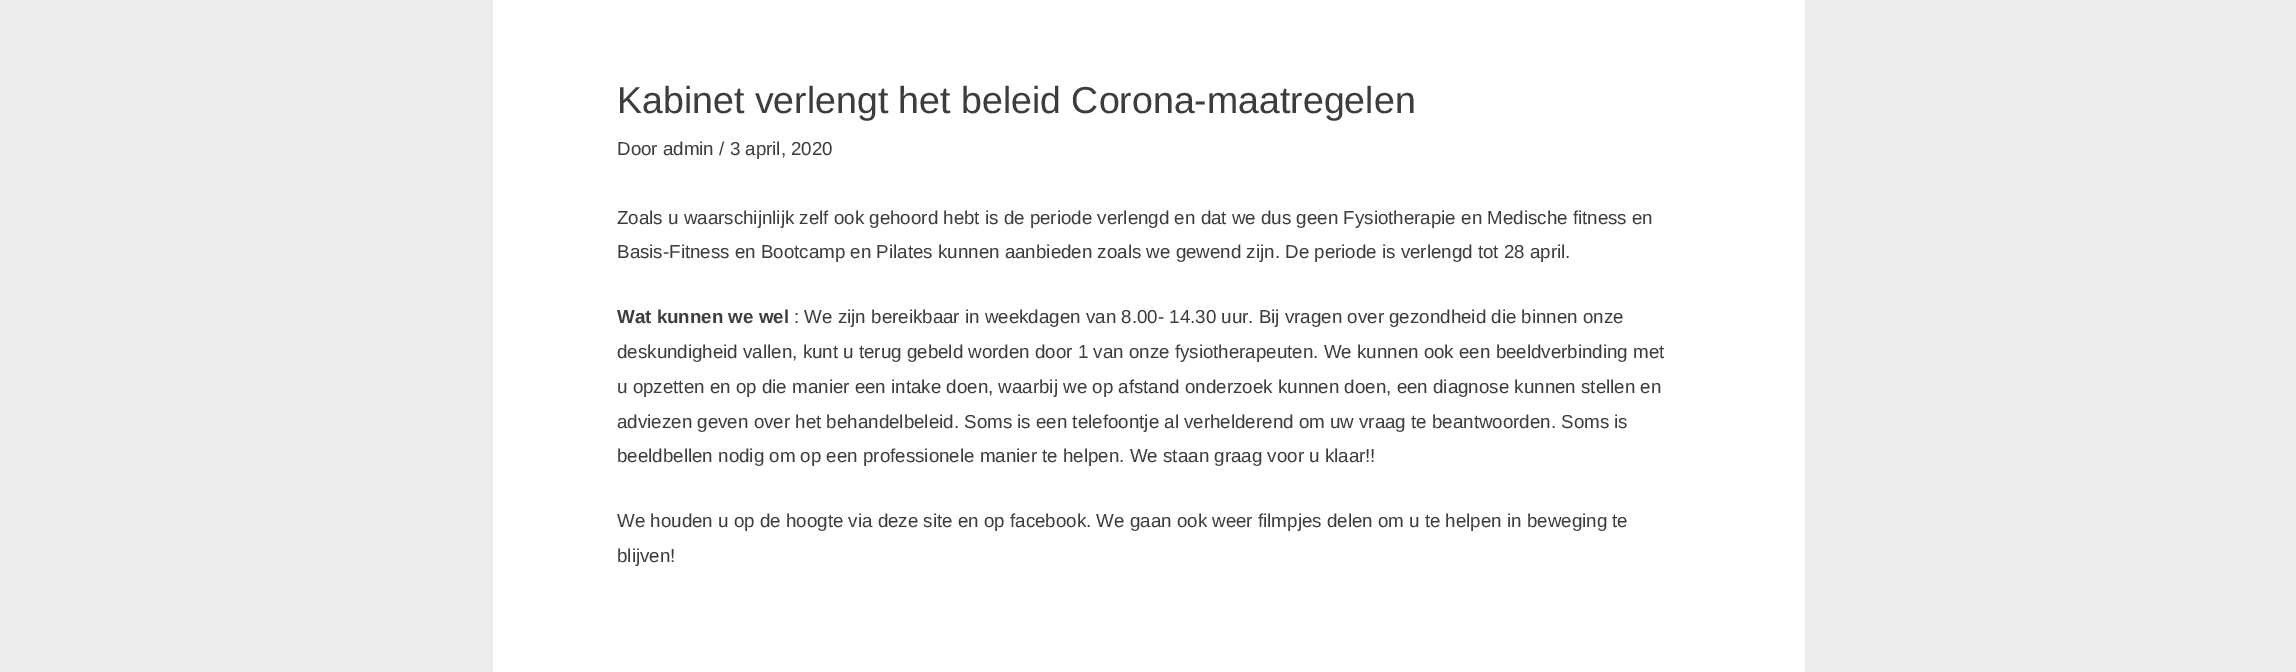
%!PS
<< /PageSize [2296 672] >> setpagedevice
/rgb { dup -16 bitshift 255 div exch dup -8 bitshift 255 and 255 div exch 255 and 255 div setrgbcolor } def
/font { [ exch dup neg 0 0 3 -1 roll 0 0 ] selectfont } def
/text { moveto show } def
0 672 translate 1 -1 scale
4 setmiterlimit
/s1 { /LiberationSans-Regular 37.5 font 16#3D3D3D rgb } def
/s2 { /LiberationSans-Regular 18.75 font 16#3D3D3D rgb } def
/s3 { /LiberationSans-Bold 18.75 font 16#3D3D3D rgb } def
16#EDECEC rgb
0 0 2296 672 rectfill
16#FFFFFF rgb
493 0 1312 672 rectfill
s1
(Kabinet verlengt het beleid Corona-maatregelen) 617 113 text
s2
(Door admin / 3 april, 2020) 617 155 text
(Zoals u waarschijnlijk zelf ook gehoord hebt is de periode verlengd en dat we dus geen Fysiotherapie en Medische fitness en) 617 224 text
(Basis-Fitness en Bootcamp en Pilates kunnen aanbieden zoals we gewend zijn. De periode is verlengd tot 28 april.) 617 258 text
s3
(Wat kunnen we wel) 617 323 text
s2
(: We zijn bereikbaar in weekdagen van 8.00- 14.30 uur. Bij vragen over gezondheid die binnen onze) 794 323 text
(deskundigheid vallen, kunt u terug gebeld worden door 1 van onze fysiotherapeuten. We kunnen ook een beeldverbinding met) 617 358 text
(u opzetten en op die manier een intake doen, waarbij we op afstand onderzoek kunnen doen, een diagnose kunnen stellen en) 617 393 text
(adviezen geven over het behandelbeleid. Soms is een telefoontje al verhelderend om uw vraag te beantwoorden. Soms is) 617 428 text
(beeldbellen nodig om op een professionele manier te helpen. We staan graag voor u klaar!!) 617 462 text
(We houden u op de hoogte via deze site en op facebook. We gaan ook weer filmpjes delen om u te helpen in beweging te) 617 527 text
(blijven!) 617 562 text
showpage
